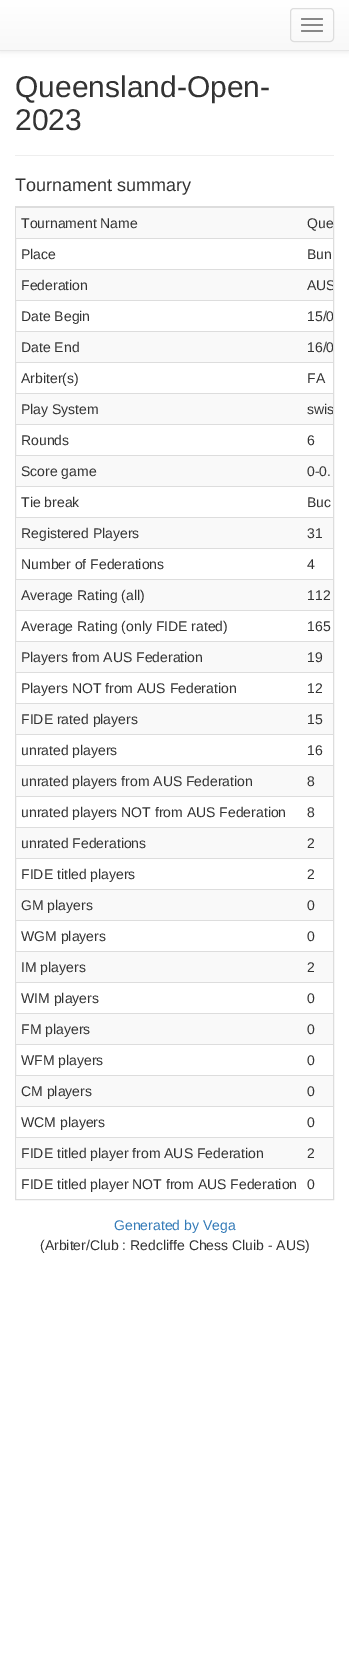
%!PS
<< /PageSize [349 1673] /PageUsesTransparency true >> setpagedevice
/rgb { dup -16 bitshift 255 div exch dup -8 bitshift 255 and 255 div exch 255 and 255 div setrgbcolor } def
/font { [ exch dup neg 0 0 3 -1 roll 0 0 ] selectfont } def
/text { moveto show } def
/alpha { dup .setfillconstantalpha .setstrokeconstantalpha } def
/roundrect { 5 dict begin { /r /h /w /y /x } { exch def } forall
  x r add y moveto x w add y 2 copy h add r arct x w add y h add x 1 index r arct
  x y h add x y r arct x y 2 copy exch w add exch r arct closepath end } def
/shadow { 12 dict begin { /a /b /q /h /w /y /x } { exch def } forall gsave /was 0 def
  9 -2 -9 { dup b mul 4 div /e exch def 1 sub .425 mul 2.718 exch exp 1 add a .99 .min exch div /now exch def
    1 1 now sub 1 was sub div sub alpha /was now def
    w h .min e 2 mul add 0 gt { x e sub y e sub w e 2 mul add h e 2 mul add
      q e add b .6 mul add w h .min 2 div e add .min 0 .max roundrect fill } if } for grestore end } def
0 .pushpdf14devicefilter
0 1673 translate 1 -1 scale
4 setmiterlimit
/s1 { /LiberationSans-Regular 30 font 16#333333 rgb } def
/s2 { /LiberationSans-Regular 18 font 16#333333 rgb } def
/s3 { /LiberationSans-Regular 14 font 16#333333 rgb } def
/s4 { /LiberationSans-Regular 14 font 16#337AB7 rgb } def
16#FFFFFF rgb
0 0 349 1673 rectfill
16#000000 rgb
0 1 349 51 0 2.5 0.07 shadow
gsave 0 0 moveto 349 0 lineto 349 50 lineto 0 50 lineto closepath clip newpath
<< /ShadingType 2 /ColorSpace /DeviceRGB /Coords [175 0 175 50] /Extend [true true] /Function << /FunctionType 2 /Domain [0 1] /C0 [1 1 1] /C1 [0.973 0.973 0.973] /N 1 >> >> shfill grestore
16#E7E7E7 rgb
0 50 349 1 rectfill
16#DDDDDD rgb
290.5 8.5 43 33 3.5 roundrect stroke
16#888888 rgb
301 18 22 2 1 roundrect fill
301 24 22 2 1 roundrect fill
301 30 22 2 1 roundrect fill
16#EEEEEE rgb
15 155 319 1 rectfill
s1
(Queensland-Open-) 15 97 text
(2023) 15 130 text
s2
(Tournament summary) 15 191 text
16#DDDDDD rgb
15.5 206.5 318 993 rectstroke
16#F9F9F9 rgb
16 208 317 30 rectfill
s3
(Tournament Name) 21 228 text
16#DDDDDD rgb
16 207 317 1 rectfill
s3
(Que) 307 228 text
(Place) 21 259 text
16#DDDDDD rgb
16 238 317 1 rectfill
s3
(Bun) 307 259 text
16#F9F9F9 rgb
16 270 317 30 rectfill
s3
(Federation) 21 290 text
16#DDDDDD rgb
16 269 317 1 rectfill
gsave
16 207 317 992 rectclip
s3
(AUS) 307 290 text
grestore
s3
(Date Begin) 21 321 text
16#DDDDDD rgb
16 300 317 1 rectfill
gsave
16 207 317 992 rectclip
s3
(15/0) 307 321 text
grestore
16#F9F9F9 rgb
16 332 317 30 rectfill
s3
(Date End) 21 352 text
16#DDDDDD rgb
16 331 317 1 rectfill
gsave
16 207 317 992 rectclip
s3
(16/0) 307 352 text
grestore
s3
(Arbiter\(s\)) 21 383 text
16#DDDDDD rgb
16 362 317 1 rectfill
s3
(FA) 307 383 text
16#F9F9F9 rgb
16 394 317 30 rectfill
s3
(Play System) 21 414 text
16#DDDDDD rgb
16 393 317 1 rectfill
gsave
16 207 317 992 rectclip
s3
(swis) 307 414 text
grestore
s3
(Rounds) 21 445 text
16#DDDDDD rgb
16 424 317 1 rectfill
s3
(6) 307 445 text
16#F9F9F9 rgb
16 456 317 30 rectfill
s3
(Score game) 21 476 text
16#DDDDDD rgb
16 455 317 1 rectfill
s3
(0-0.) 307 476 text
(Tie break) 21 507 text
16#DDDDDD rgb
16 486 317 1 rectfill
s3
(Buc) 307 507 text
16#F9F9F9 rgb
16 518 317 30 rectfill
s3
(Registered Players) 21 538 text
16#DDDDDD rgb
16 517 317 1 rectfill
s3
(31) 307 538 text
(Number of Federations) 21 569 text
16#DDDDDD rgb
16 548 317 1 rectfill
s3
(4) 307 569 text
16#F9F9F9 rgb
16 580 317 30 rectfill
s3
(Average Rating \(all\)) 21 600 text
16#DDDDDD rgb
16 579 317 1 rectfill
s3
(112) 307 600 text
(Average Rating \(only FIDE rated\)) 21 631 text
16#DDDDDD rgb
16 610 317 1 rectfill
s3
(165) 307 631 text
16#F9F9F9 rgb
16 642 317 30 rectfill
s3
(Players from AUS Federation) 21 662 text
16#DDDDDD rgb
16 641 317 1 rectfill
s3
(19) 307 662 text
(Players NOT from AUS Federation) 21 693 text
16#DDDDDD rgb
16 672 317 1 rectfill
s3
(12) 307 693 text
16#F9F9F9 rgb
16 704 317 30 rectfill
s3
(FIDE rated players) 21 724 text
16#DDDDDD rgb
16 703 317 1 rectfill
s3
(15) 307 724 text
(unrated players) 21 755 text
16#DDDDDD rgb
16 734 317 1 rectfill
s3
(16) 307 755 text
16#F9F9F9 rgb
16 766 317 30 rectfill
s3
(unrated players from AUS Federation) 21 786 text
16#DDDDDD rgb
16 765 317 1 rectfill
s3
(8) 307 786 text
(unrated players NOT from AUS Federation) 21 817 text
16#DDDDDD rgb
16 796 317 1 rectfill
s3
(8) 307 817 text
16#F9F9F9 rgb
16 828 317 30 rectfill
s3
(unrated Federations) 21 848 text
16#DDDDDD rgb
16 827 317 1 rectfill
s3
(2) 307 848 text
(FIDE titled players) 21 879 text
16#DDDDDD rgb
16 858 317 1 rectfill
s3
(2) 307 879 text
16#F9F9F9 rgb
16 890 317 30 rectfill
s3
(GM players) 21 910 text
16#DDDDDD rgb
16 889 317 1 rectfill
s3
(0) 307 910 text
(WGM players) 21 941 text
16#DDDDDD rgb
16 920 317 1 rectfill
s3
(0) 307 941 text
16#F9F9F9 rgb
16 952 317 30 rectfill
s3
(IM players) 21 972 text
16#DDDDDD rgb
16 951 317 1 rectfill
s3
(2) 307 972 text
(WIM players) 21 1003 text
16#DDDDDD rgb
16 982 317 1 rectfill
s3
(0) 307 1003 text
16#F9F9F9 rgb
16 1014 317 30 rectfill
s3
(FM players) 21 1034 text
16#DDDDDD rgb
16 1013 317 1 rectfill
s3
(0) 307 1034 text
(WFM players) 21 1065 text
16#DDDDDD rgb
16 1044 317 1 rectfill
s3
(0) 307 1065 text
16#F9F9F9 rgb
16 1076 317 30 rectfill
s3
(CM players) 21 1096 text
16#DDDDDD rgb
16 1075 317 1 rectfill
s3
(0) 307 1096 text
(WCM players) 21 1127 text
16#DDDDDD rgb
16 1106 317 1 rectfill
s3
(0) 307 1127 text
16#F9F9F9 rgb
16 1138 317 30 rectfill
s3
(FIDE titled player from AUS Federation) 21 1158 text
16#DDDDDD rgb
16 1137 317 1 rectfill
s3
(2) 307 1158 text
(FIDE titled player NOT from AUS Federation) 21 1189 text
16#DDDDDD rgb
16 1168 317 1 rectfill
s3
(0) 307 1189 text
s4
(Generated by Vega) 114 1230 text
s3
(\(Arbiter/Club : Redcliffe Chess Cluib - AUS\)) 40 1250 text
.poppdf14devicefilter showpage
